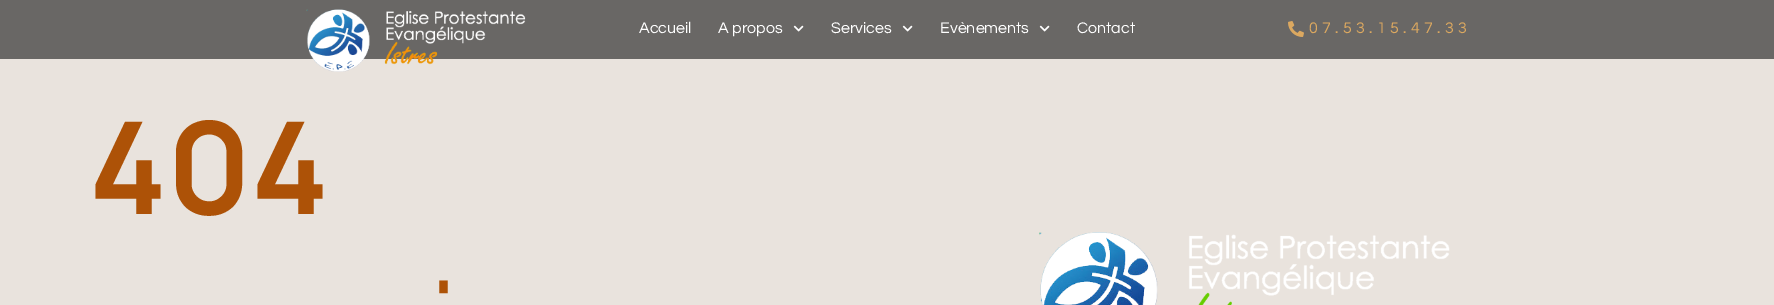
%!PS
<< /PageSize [1774 305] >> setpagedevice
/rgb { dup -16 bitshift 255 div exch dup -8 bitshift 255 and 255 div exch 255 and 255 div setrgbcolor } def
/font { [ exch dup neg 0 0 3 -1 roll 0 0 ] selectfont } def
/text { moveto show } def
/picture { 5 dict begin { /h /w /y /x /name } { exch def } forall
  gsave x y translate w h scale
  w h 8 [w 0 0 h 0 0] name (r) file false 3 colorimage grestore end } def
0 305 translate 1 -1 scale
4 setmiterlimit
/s1 { /Questrial-Regular 16 font 16#FFFFFF rgb } def
/s2 { /Manrope-Bold 128 font 16#AD5207 rgb } def
/s3 { /Manrope-Bold 70 font 16#AD5207 rgb } def
16#E9E3DD rgb
0 0 1774 305 rectfill
16#696765 rgb
0 0 1774 59 rectfill
(pic1.raw) 306 9 220 63 picture
s1
(Accueil) 639 33 text
(A propos) 718 33 text
(pic2.raw) 793 25 11 7 picture
(Services) 831 33 text
(pic2.raw) 902 25 11 7 picture
(Evènements) 940 33 text
(pic2.raw) 1039 25 11 7 picture
(Contact) 1077 33 text
(pic3.raw) 1288 21 16 16 picture
16#DBA860 rgb
1309 33 moveto 4.4 0 (07.53.15.47.33) ashow
s2
(404) 89 214 text
s3
(') 435 331 text
(pic4.raw) 1039 232 411 73 picture
showpage
